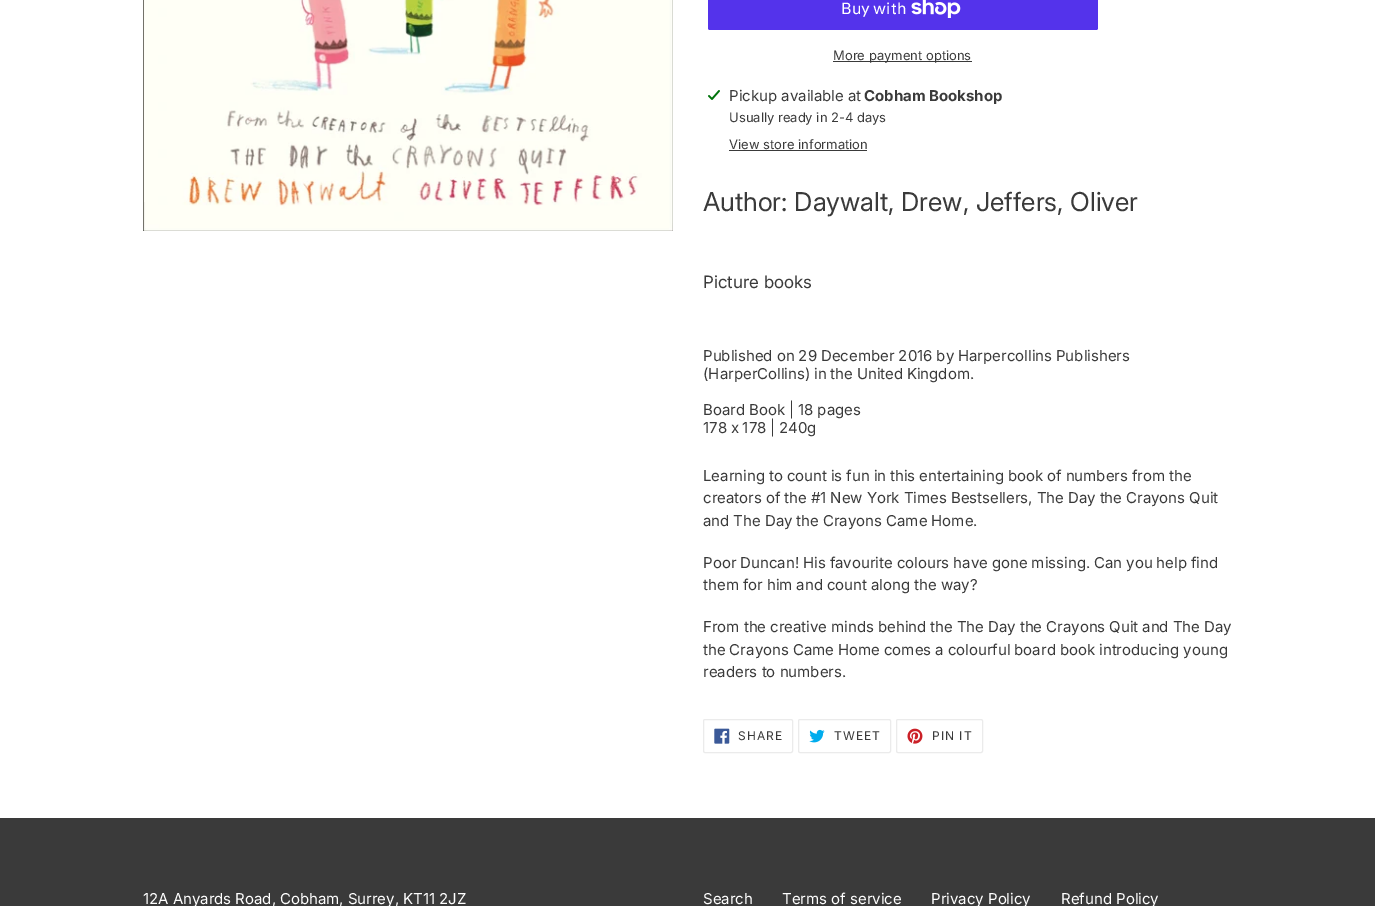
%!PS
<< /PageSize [1375 906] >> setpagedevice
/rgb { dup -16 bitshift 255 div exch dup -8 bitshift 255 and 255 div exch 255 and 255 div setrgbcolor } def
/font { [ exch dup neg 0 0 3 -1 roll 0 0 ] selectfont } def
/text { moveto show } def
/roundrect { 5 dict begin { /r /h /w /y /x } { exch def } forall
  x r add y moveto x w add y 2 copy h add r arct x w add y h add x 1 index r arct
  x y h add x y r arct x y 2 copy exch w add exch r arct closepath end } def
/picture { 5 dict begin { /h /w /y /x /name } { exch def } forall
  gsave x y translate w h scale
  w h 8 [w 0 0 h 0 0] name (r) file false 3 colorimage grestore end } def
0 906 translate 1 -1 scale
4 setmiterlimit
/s1 { /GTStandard-Regular 16 font 16#FFFFFF rgb } def
/s2 { /Inter-Regular 13 font 16#3A3A3A rgb } def
/s3 { /Inter-Regular 15 font 16#3A3A3A rgb } def
/s4 { /Inter-Bold 15 font 16#3A3A3A rgb } def
/s5 { /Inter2-Regular 26 font 16#3A3A3A rgb } def
/s6 { /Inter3-Regular 17 font 16#3A3A3A rgb } def
/s7 { /Inter-Regular 15 font 16#FFFFFF rgb } def
16#FFFFFF rgb
0 0 1375 906 rectfill
(pic1.raw) 143 0 530 231 picture
16#5433EB rgb
708 -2 390 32 2 roundrect fill
s1
(Buy with) 841 14 text
(pic2.raw) 911 0 50 18 picture
16#3A3A3A rgb
833 61 139 1 rectfill
s2
(More payment options) 833 60 text
(pic3.raw) 708 90 12 10 picture
s3
(Pickup available at) 729 101 text
s4
(Cobham Bookshop) 864 101 text
s2
(Usually ready in 2-4 days) 729 122 text
(View store information) 729 149 text
729 150 138 1 rectfill
s5
(Author: Daywalt, Drew, Jeffers, Oliver) 703 211 text
s6
(Picture books) 703 288 text
/Inter-Regular 15 font
703 361 moveto -0.25 0 32 (Published on 29 December 2016 by Harpercollins Publishers) widthshow
703 379 moveto -0.5 0 32 (\(HarperCollins\) in the United Kingdom.) widthshow
703 415 moveto -0.25 0 32 (Board Book | 18 pages) widthshow
703 433 moveto -0.5 0 32 (178 x 178 | 240g) widthshow
703 481 moveto -0.25 0 32 (Learning to count is fun in this entertaining book of numbers from the) widthshow
703 503 moveto -0.25 0 32 (creators of the #1 New York Times Bestsellers, The Day the Crayons Quit) widthshow
703 526 moveto -0.25 0 32 (and The Day the Crayons Came Home.) widthshow
703 568 moveto -0.25 0 32 (Poor Duncan! His favourite colours have gone missing. Can you help find) widthshow
703 590 moveto -0.25 0 32 (them for him and count along the way?) widthshow
703 632 moveto -0.25 0 32 (From the creative minds behind the The Day the Crayons Quit and The Day) widthshow
703 655 moveto -0.25 0 32 (the Crayons Came Home comes a colourful board book introducing young) widthshow
(readers to numbers.) 703 677 text
16#EBEBEB rgb
703.5 719.5 89 33 1.5 roundrect stroke
(pic4.raw) 714 728 16 16 picture
/Inter-Regular 12 font
16#3A3A3A rgb
738 740 moveto 1 0 (SHARE) ashow
16#EBEBEB rgb
798.5 719.5 92 33 1.5 roundrect stroke
(pic5.raw) 809 729 16 14 picture
16#3A3A3A rgb
834 740 moveto 1 0 (TWEET) ashow
16#EBEBEB rgb
896.5 719.5 86 33 1.5 roundrect stroke
(pic6.raw) 907 728 16 16 picture
16#3A3A3A rgb
932 740 moveto 1 0 (PIN IT) ashow
0 818 1375 88 rectfill
/Inter-Regular 15 font
16#FFFFFF rgb
143 904 moveto -0.25 0 32 (12A Anyards Road, Cobham, Surrey, KT11 2JZ) widthshow
(Search) 703 904 text
(Terms of service) 782 904 text
(Privacy Policy) 931 904 text
(Refund Policy) 1061 904 text
showpage
